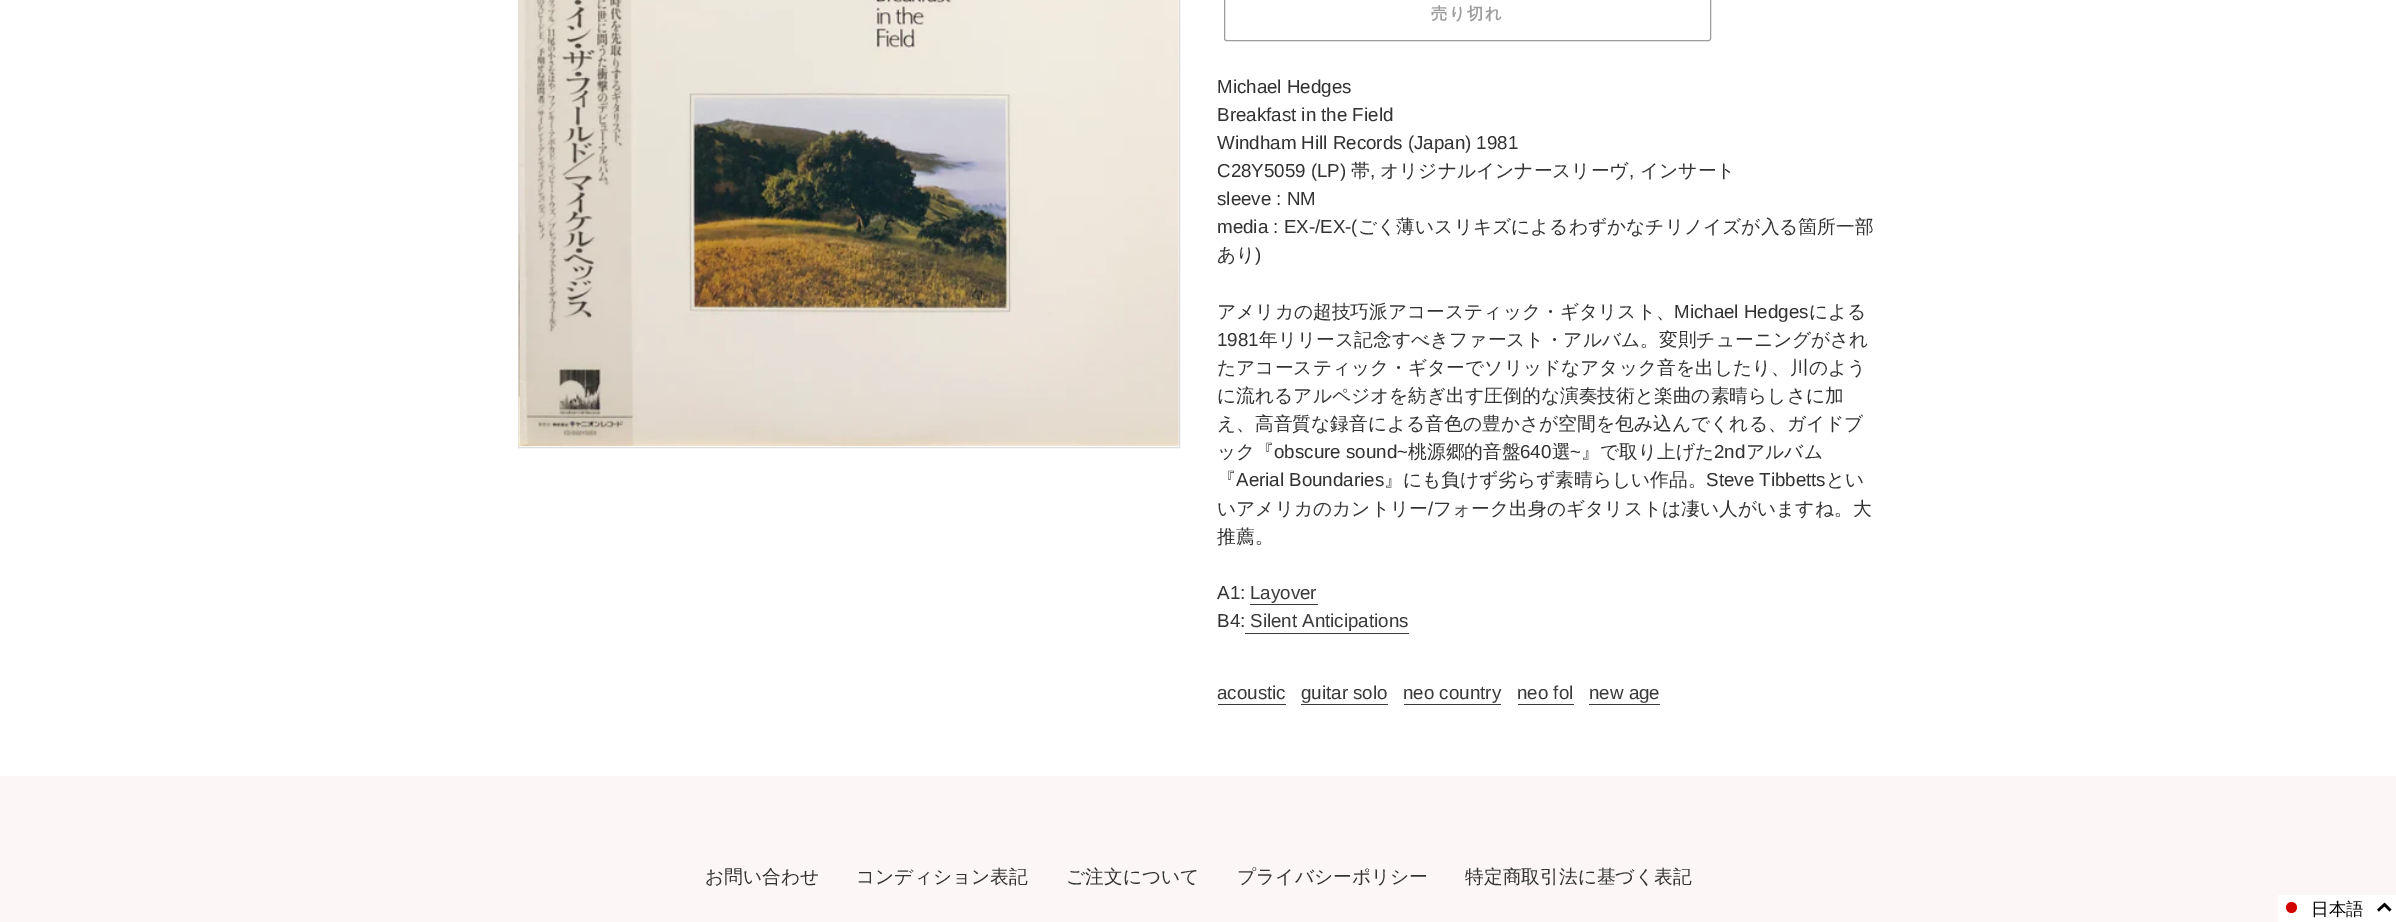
%!PS
<< /PageSize [2396 922] >> setpagedevice
/rgb { dup -16 bitshift 255 div exch dup -8 bitshift 255 and 255 div exch 255 and 255 div setrgbcolor } def
/font { [ exch dup neg 0 0 3 -1 roll 0 0 ] selectfont } def
/text { moveto show } def
/circle { newpath 0 360 arc closepath } def
/roundrect { 5 dict begin { /r /h /w /y /x } { exch def } forall
  x r add y moveto x w add y 2 copy h add r arct x w add y h add x 1 index r arct
  x y h add x y r arct x y 2 copy exch w add exch r arct closepath end } def
/picture { 5 dict begin { /h /w /y /x /name } { exch def } forall
  gsave x y translate w h scale
  w h 8 [w 0 0 h 0 0] name (r) file false 3 colorimage grestore end } def
0 922 translate 1 -1 scale
4 setmiterlimit
/s1 { /LiberationSans-Regular 18.75 font 16#333232 rgb } def
/s2 { /WenQuanYiZenHei-Medium 18.75 font 16#333232 rgb } def
/s3 { /LiberationSans-Regular 18.75 font 16#3A3A3A rgb } def
/s4 { /WenQuanYiZenHei-Medium 17.5 font 16#000000 rgb } def
16#FFFFFF rgb
0 0 2396 922 rectfill
16#DDDDDD rgb
518.5 -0.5 661 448 rectstroke
(pic1.raw) 518 0 661 447 picture
16#9D9D9D rgb
1224.5 -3.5 486 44 2 roundrect stroke
/WenQuanYiZenHei-Bold 16.25 font
1431 19 moveto 1.5 0 (売り切れ) ashow
s1
(Michael Hedges) 1217 93 text
(Breakfast in the Field) 1217 121 text
(Windham Hill Records \(Japan\) 1981) 1217 149 text
(C28Y5059 \(LP\)) 1217 177 text
s2
(帯) 1351 177 text
s1
(,) 1370 177 text
s2
(オリジナルインナースリーヴ) 1380 177 text
s1
(,) 1629 177 text
s2
(インサート) 1640 177 text
s1
(sleeve : NM) 1217 205 text
(media : EX-/EX-\() 1217 233 text
s2
(ごく薄いスリキズによるわずかなチリノイズが入る箇所一部) 1358 233 text
(あり) 1217 261 text
s1
(\)) 1255 261 text
s2
(アメリカの超技巧派アコースティック・ギタリスト、) 1217 318 text
s1
(Michael Hedges) 1674 318 text
s2
(による) 1809 318 text
s1
(1981) 1217 346 text
s2
(年リリース記念すべきファースト・アルバム。変則チューニングがされ) 1259 346 text
(たアコースティック・ギターでソリッドなアタック音を出したり、川のよう) 1217 374 text
(に流れるアルペジオを紡ぎ出す圧倒的な演奏技術と楽曲の素晴らしさに加) 1217 402 text
(え、高音質な録音による音色の豊かさが空間を包み込んでくれる、ガイドブ) 1217 430 text
(ック『) 1217 458 text
s1
(obscure sound~) 1274 458 text
s2
(桃源郷的音盤) 1408 458 text
s1
(640) 1520 458 text
s2
(選) 1552 458 text
s1
(~) 1570 458 text
s2
(』で取り上げた) 1581 458 text
s1
(2nd) 1714 458 text
s2
(アルバム) 1746 458 text
(『) 1217 486 text
s1
(Aerial Boundaries) 1236 486 text
s2
(』にも負けず劣らず素晴らしい作品。) 1384 486 text
s1
(Steve Tibbetts) 1706 486 text
s2
(とい) 1826 486 text
(いアメリカのカントリー) 1217 515 text
s1
(/) 1428 515 text
s2
(フォーク出身のギタリストは凄い人がいますね。大) 1433 515 text
(推薦。) 1217 543 text
s1
(A1:) 1217 599 text
s3
(Layover) 1250 599 text
1250 604 68 1 rectfill
s1
(B4:) 1217 627 text
s3
(Silent Anticipations) 1250 627 text
1245 633 164 1 rectfill
(acoustic) 1217 699 text
1218 704 68 1 rectfill
(guitar solo) 1301 699 text
1301 704 87 1 rectfill
(neo country) 1403 699 text
1404 704 97 1 rectfill
(neo fol) 1517 699 text
1518 704 56 1 rectfill
(new age) 1589 699 text
1589 704 71 1 rectfill
16#FCF6F6 rgb
0 776 2396 146 rectfill
s2
(お問い合わせ) 705 883 text
(コンディション表記) 856 883 text
(ご注文について) 1066 883 text
(プライバシーポリシー) 1237 883 text
(特定商取引法に基づく表記) 1465 883 text
16#FFFFFF rgb
2278 895 118 27 rectfill
16#D30000 rgb
2291.5 907.5 5.5 circle fill
s4
(日本語) 2311 915 text
2.5 setlinewidth
2390.5 910.5 moveto 2384.5 904.5 lineto 2378 910.5 lineto stroke
showpage
